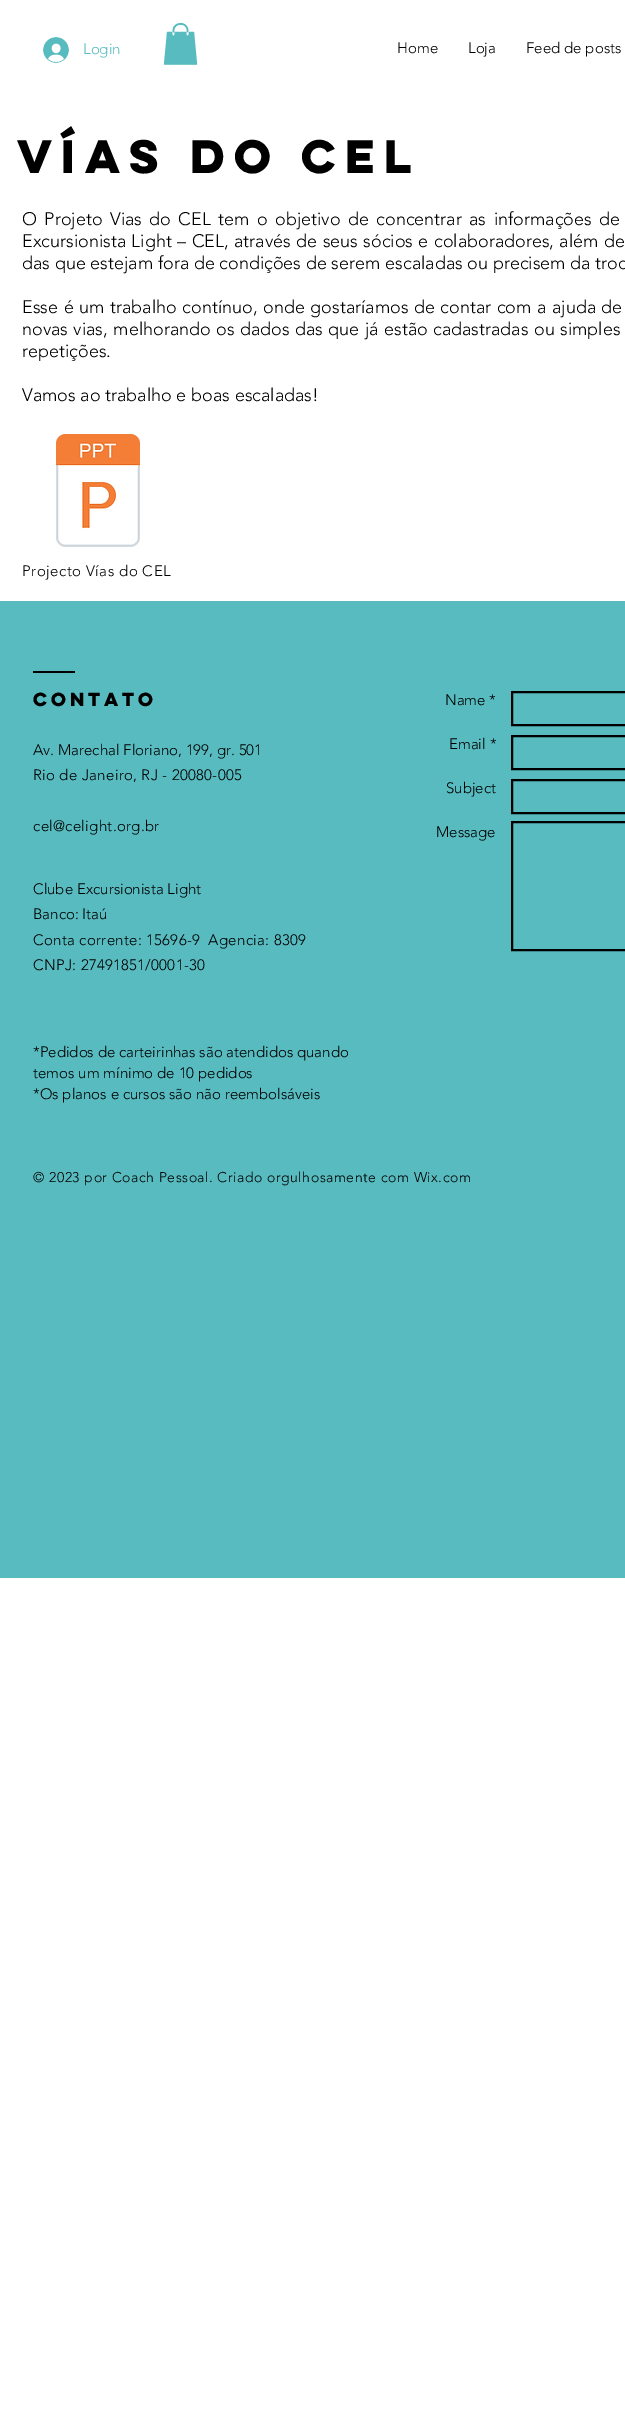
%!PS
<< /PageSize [625 2423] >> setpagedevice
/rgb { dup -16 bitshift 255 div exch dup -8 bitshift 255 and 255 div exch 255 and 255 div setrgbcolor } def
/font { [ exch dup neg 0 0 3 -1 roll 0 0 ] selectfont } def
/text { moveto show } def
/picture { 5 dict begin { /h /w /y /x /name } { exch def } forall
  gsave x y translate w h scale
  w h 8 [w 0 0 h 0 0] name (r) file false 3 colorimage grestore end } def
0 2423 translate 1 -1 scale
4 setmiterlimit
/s1 { /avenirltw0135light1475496-Light 15 font 16#57BBBF rgb } def
/s2 { /avenirltw0135light1475496-Light 15 font 16#000000 rgb } def
/s3 { /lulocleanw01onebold-Bold 42 font 16#000000 rgb } def
/s4 { /avenirltw0135light1475496-Light 18 font 16#000000 rgb } def
/s5 { /lulocleanw01onebold-Bold 17 font 16#000000 rgb } def
16#FFFFFF rgb
0 0 625 2423 rectfill
(pic1.raw) 43 37 26 26 picture
s1
(Login) 83 54 text
(pic2.raw) 163 23 35 42 picture
s2
(Home) 397 53 text
(Loja) 468 53 text
(Feed de posts) 526 53 text
s3
(Vías do CEL) 17 173 text
/avenirltw0135light1475496-Light 18 font
22 225 moveto 2.75 0 32 (O Projeto Vias do CEL tem o objetivo de concentrar as informações de) widthshow
22 247 moveto 0.75 0 32 (Excursionista Light – CEL, através de seus sócios e colaboradores, além de) widthshow
(das que estejam fora de condições de serem escaladas ou precisem da troc) 22 269 text
22 313 moveto 0.9 0 32 (Esse é um trabalho contínuo, onde gostaríamos de contar com a ajuda de) widthshow
22 335 moveto 0.75 0 32 (novas vias, melhorando os dados das que já estão cadastradas ou simples) widthshow
(repetições.) 22 357 text
(Vamos ao trabalho e boas escaladas!) 22 401 text
(pic3.raw) 56 434 84 113 picture
/avenirltw0135light1475496-Light 15 font
22 576 moveto 0.5 0 (Projecto Vías do CEL) ashow
16#57BBBF rgb
0 601 625 977 rectfill
16#000000 rgb
33 671 42 2 rectfill
s5
(CONTATO) 33 706 text
s2
(Name *) 445 705 text
2 setlinewidth
512 692 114 33 rectstroke
(Email *) 449 749 text
512 736 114 33 rectstroke
(Subject) 446 793 text
512 780 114 33 rectstroke
(Message) 436 837 text
512 822 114 128 rectstroke
(Av. Marechal Floriano, 199, gr. 501) 33 755 text
33 780 moveto 0.3 0 (Rio de Janeiro, RJ - 20080-005) ashow
33 831 moveto 0.3 0 (cel@celight.org.br) ashow
(Clube Excursionista Light) 33 894 text
(Banco: Itaú) 33 919 text
33 945 moveto 0.3 0 (Conta corrente: 15696-9  Agencia: 8309) ashow
33 970 moveto 0.3 0 (CNPJ: 27491851/0001-30) ashow
(*Pedidos de carteirinhas são atendidos quando) 33 1057 text
(temos um mínimo de 10 pedidos) 33 1078 text
(*Os planos e cursos são não reembolsáveis) 33 1099 text
/avenirltw0135light1475496-Light 14 font
33 1182 moveto 0.55 0 (© 2023 por Coach Pessoal. Criado orgulhosamente com Wix.com) ashow
showpage
